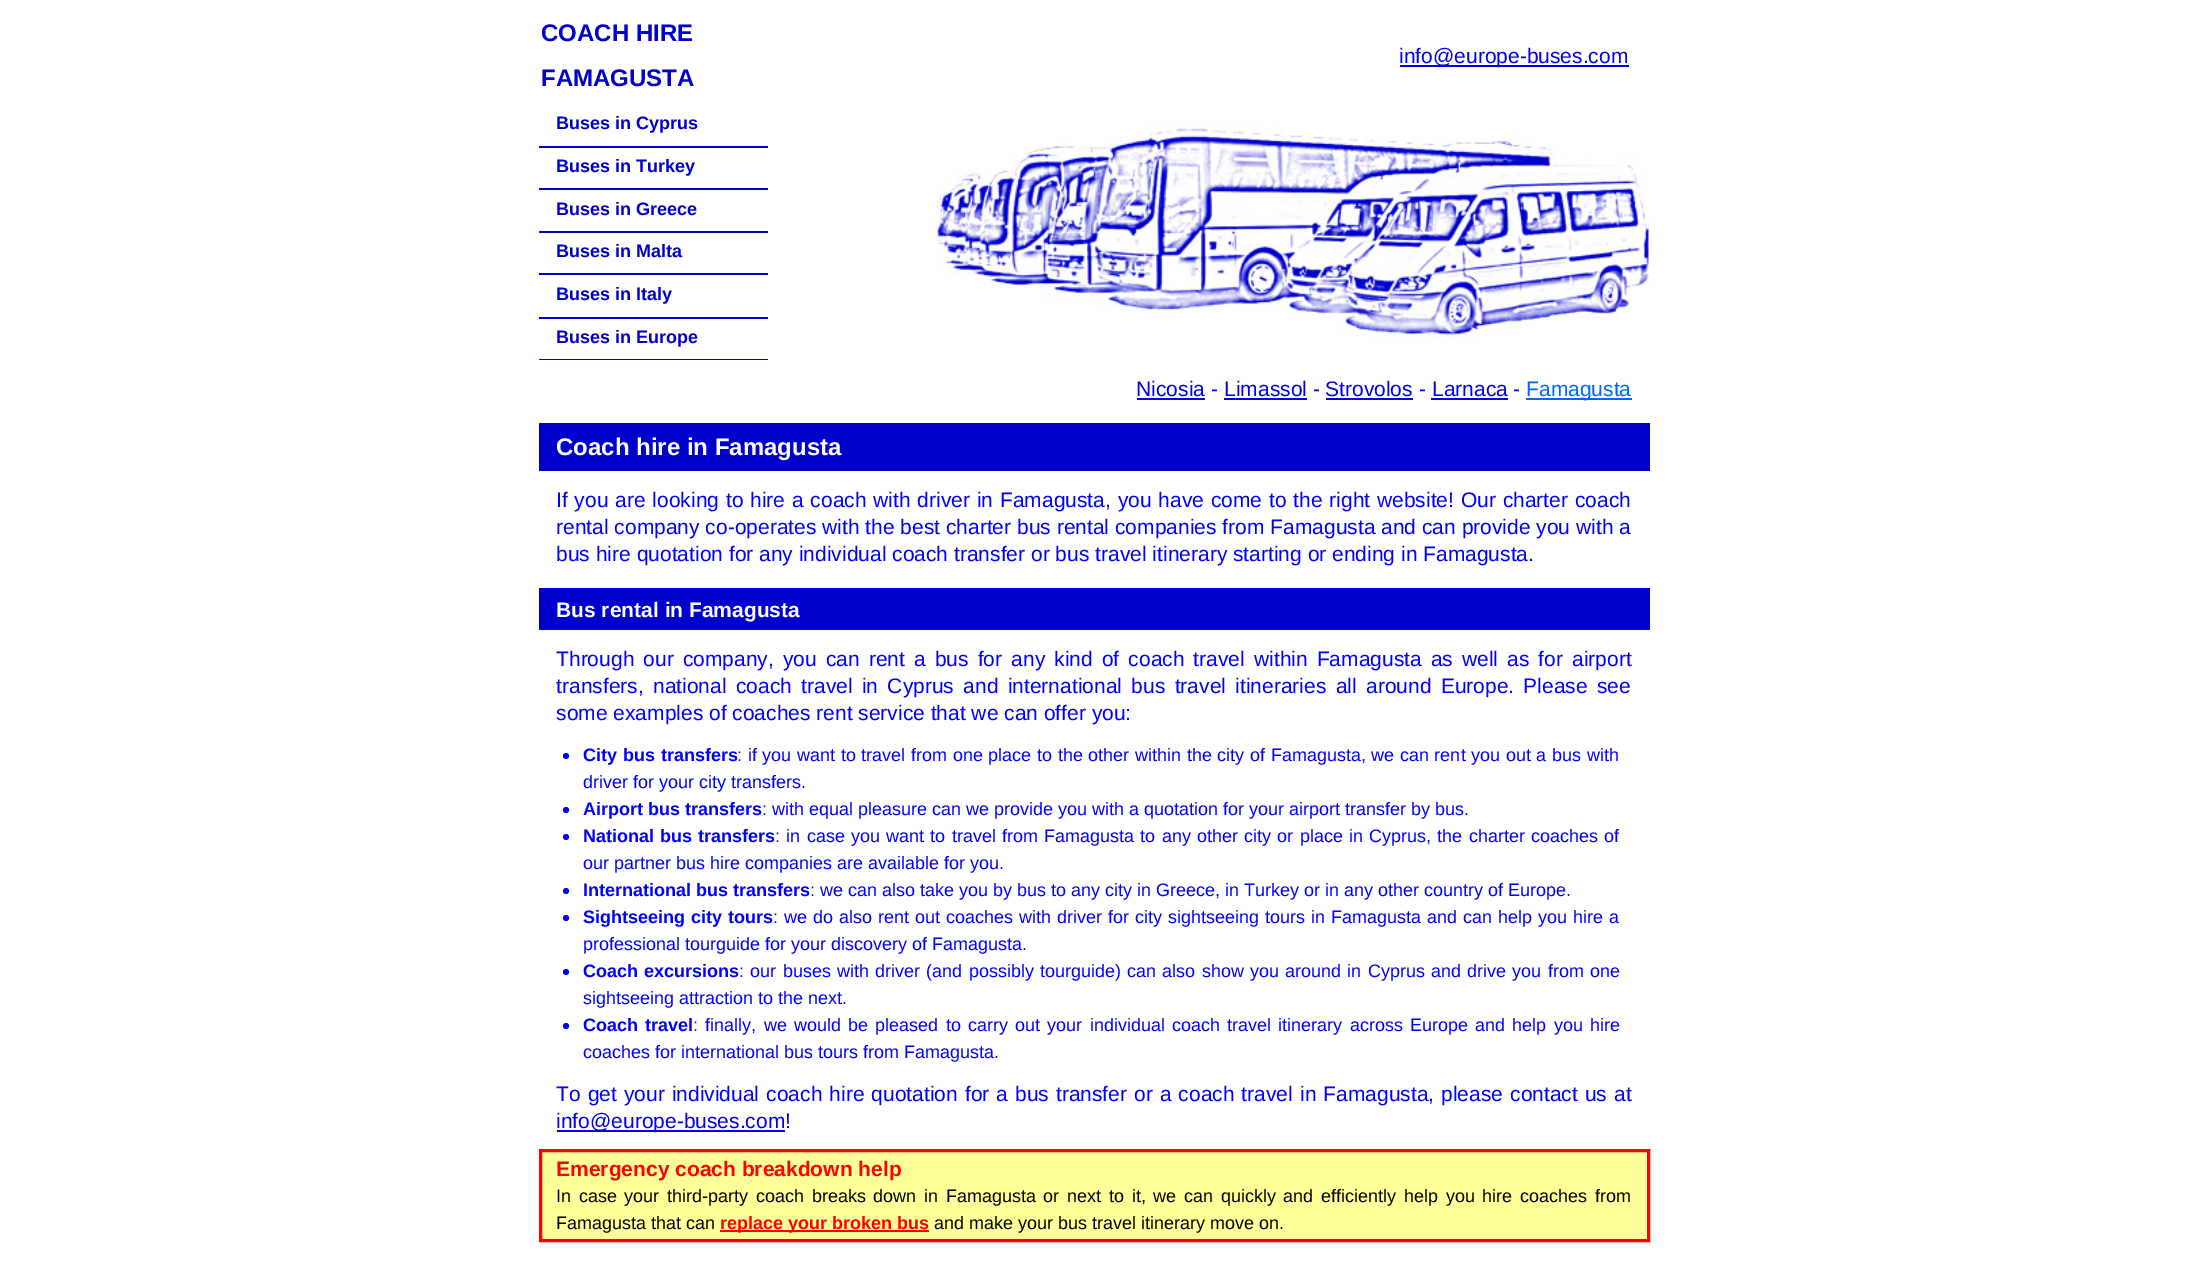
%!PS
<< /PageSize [2187 1261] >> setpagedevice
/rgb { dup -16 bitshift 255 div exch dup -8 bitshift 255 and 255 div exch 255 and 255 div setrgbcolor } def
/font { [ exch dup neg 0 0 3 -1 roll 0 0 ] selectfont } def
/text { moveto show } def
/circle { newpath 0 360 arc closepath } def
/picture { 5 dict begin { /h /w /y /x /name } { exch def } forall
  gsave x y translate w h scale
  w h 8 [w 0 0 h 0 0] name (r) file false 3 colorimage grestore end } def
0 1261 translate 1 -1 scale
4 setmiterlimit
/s1 { /LiberationSans-Bold 24 font 16#0000CC rgb } def
/s2 { /LiberationSans-Regular 21 font 16#0000EE rgb } def
/s3 { /LiberationSans-Bold 18 font 16#0000CC rgb } def
/s4 { /LiberationSans-Regular 21 font 16#0000FF rgb } def
/s5 { /LiberationSans-Regular 21 font 16#0066FF rgb } def
/s6 { /LiberationSans-Bold 24 font 16#FFFFFF rgb } def
/s7 { /LiberationSans-Bold 21 font 16#FFFFFF rgb } def
/s8 { /LiberationSans-Regular 18 font 16#0000FF rgb } def
/s9 { /LiberationSans-Bold 18 font 16#0000FF rgb } def
/s10 { /LiberationSans-Bold 21 font 16#FF0000 rgb } def
/s11 { /LiberationSans-Regular 18 font 16#000000 rgb } def
/s12 { /LiberationSans-Bold 18 font 16#FF0000 rgb } def
16#FFFFFF rgb
0 0 2187 1261 rectfill
s1
(COACH HIRE) 541 41 text
(FAMAGUSTA) 541 86 text
16#0000EE rgb
1400 65 229 2 rectfill
s2
(info@europe-buses.com) 1399 63 text
16#0000CC rgb
539 146 229 2 rectfill
s3
(Buses in Cyprus) 556 129 text
539 188 229 2 rectfill
(Buses in Turkey) 556 172 text
539 231 229 2 rectfill
(Buses in Greece) 556 215 text
539 273 229 2 rectfill
(Buses in Malta) 556 257 text
539 317 229 2 rectfill
(Buses in Italy) 556 300 text
539 359 229 1 rectfill
(Buses in Europe) 556 343 text
(pic1.raw) 935 125 714 216 picture
s2
(Nicosia) 1136 396 text
1137 398 68 2 rectfill
s4
(-) 1211 396 text
s2
(Limassol) 1224 396 text
1224 398 83 2 rectfill
s4
(-) 1313 396 text
s2
(Strovolos) 1325 396 text
1326 398 87 2 rectfill
s4
(-) 1419 396 text
s2
(Larnaca) 1432 396 text
1431 398 77 2 rectfill
s4
(-) 1513 396 text
16#0066FF rgb
1526 398 106 2 rectfill
(Famagusta) 1526 396 text
16#0000CC rgb
539 423 1111 48 rectfill
s6
(Coach hire in Famagusta) 556 455 text
/LiberationSans-Regular 21 font
16#0000FF rgb
556 507 moveto 1 0 32 (If you are looking to hire a coach with driver in Famagusta, you have come to the right website! Our charter coach) widthshow
(rental company co-operates with the best charter bus rental companies from Famagusta and can provide you with a) 556 534 text
(bus hire quotation for any individual coach transfer or bus travel itinerary starting or ending in Famagusta.) 556 561 text
16#0000CC rgb
539 588 1111 42 rectfill
s7
(Bus rental in Famagusta) 556 617 text
/LiberationSans-Regular 21 font
16#0000FF rgb
556 666 moveto 3.25 0 32 (Through our company, you can rent a bus for any kind of coach travel within Famagusta as well as for airport) widthshow
556 693 moveto 3.5 0 32 (transfers, national coach travel in Cyprus and international bus travel itineraries all around Europe. Please see) widthshow
(some examples of coaches rent service that we can offer you:) 556 720 text
566 756 3 circle fill
/LiberationSans-Bold 18 font
583 761 moveto 1 0 32 (City bus transfers) widthshow
/LiberationSans-Regular 18 font
737 761 moveto 0.65 0 32 (: if you want to travel from one place to the other within the city of Famagusta, we can rent you out a bus with) widthshow
(driver for your city transfers.) 583 788 text
566 810 3 circle fill
s9
(Airport bus transfers) 583 815 text
s8
(: with equal pleasure can we provide you with a quotation for your airport transfer by bus.) 762 815 text
566 837 3 circle fill
/LiberationSans-Bold 18 font
583 842 moveto 1.25 0 32 (National bus transfers) widthshow
/LiberationSans-Regular 18 font
775 842 moveto 1.25 0 32 (: in case you want to travel from Famagusta to any other city or place in Cyprus, the charter coaches of) widthshow
(our partner bus hire companies are available for you.) 583 869 text
566 891 3 circle fill
s9
(International bus transfers) 583 896 text
s8
(: we can also take you by bus to any city in Greece, in Turkey or in any other country of Europe.) 810 896 text
566 918 3 circle fill
/LiberationSans-Bold 18 font
583 923 moveto 1 0 32 (Sightseeing city tours) widthshow
/LiberationSans-Regular 18 font
773 923 moveto 1 0 32 (: we do also rent out coaches with driver for city sightseeing tours in Famagusta and can help you hire a) widthshow
(professional tourguide for your discovery of Famagusta.) 583 950 text
566 972 3 circle fill
/LiberationSans-Bold 18 font
583 977 moveto 1.25 0 32 (Coach excursions) widthshow
/LiberationSans-Regular 18 font
739 977 moveto 1.25 0 32 (: our buses with driver \(and possibly tourguide\) can also show you around in Cyprus and drive you from one) widthshow
(sightseeing attraction to the next.) 583 1004 text
566 1026 3 circle fill
/LiberationSans-Bold 18 font
583 1031 moveto 2.25 0 32 (Coach travel) widthshow
/LiberationSans-Regular 18 font
693 1031 moveto 2.25 0 32 (: finally, we would be pleased to carry out your individual coach travel itinerary across Europe and help you hire) widthshow
(coaches for international bus tours from Famagusta.) 583 1058 text
/LiberationSans-Regular 21 font
556 1101 moveto 1.2 0 32 (To get your individual coach hire quotation for a bus transfer or a coach travel in Famagusta, please contact us at) widthshow
16#0000EE rgb
557 1130 228 2 rectfill
(info@europe-buses.com) 556 1128 text
s4
(!) 785 1128 text
16#FFFF99 rgb
540.5 1150.5 moveto 1648.5 1150.5 lineto 1648.5 1240.5 lineto 540.5 1240.5 lineto closepath gsave fill grestore
16#FF0000 rgb
3 setlinewidth
stroke
s10
(Emergency coach breakdown help) 556 1176 text
/LiberationSans-Regular 18 font
16#000000 rgb
556 1202 moveto 2.7 0 32 (In case your third-party coach breaks down in Famagusta or next to it, we can quickly and efficiently help you hire coaches from) widthshow
(Famagusta that can) 556 1229 text
16#FF0000 rgb
720 1230 209 2 rectfill
s12
(replace your broken bus) 720 1229 text
s11
(and make your bus travel itinerary move on.) 934 1229 text
showpage
